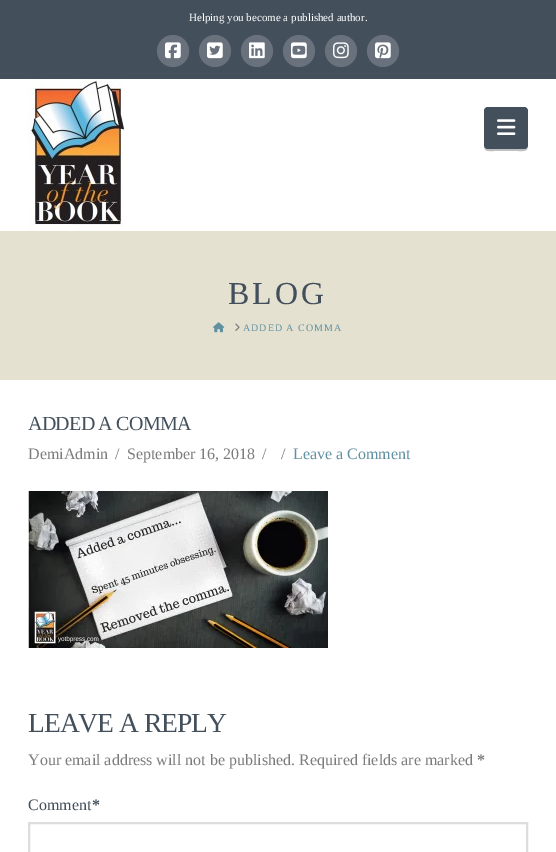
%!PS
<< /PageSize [556 852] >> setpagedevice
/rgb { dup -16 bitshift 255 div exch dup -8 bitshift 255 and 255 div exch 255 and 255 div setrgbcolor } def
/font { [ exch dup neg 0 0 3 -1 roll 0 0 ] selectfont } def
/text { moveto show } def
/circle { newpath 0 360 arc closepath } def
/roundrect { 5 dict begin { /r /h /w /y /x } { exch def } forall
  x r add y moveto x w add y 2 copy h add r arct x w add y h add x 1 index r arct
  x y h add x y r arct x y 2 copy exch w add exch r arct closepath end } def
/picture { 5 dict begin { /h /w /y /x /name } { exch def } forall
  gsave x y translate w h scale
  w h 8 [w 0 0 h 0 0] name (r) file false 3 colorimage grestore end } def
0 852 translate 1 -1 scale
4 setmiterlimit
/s1 { /LiberationSerif-Regular 11 font 16#FFFFFF rgb } def
/s2 { /LiberationSerif-Regular 16 font 16#7C7C7C rgb } def
/s3 { /LiberationSerif-Regular 16 font 16#6190A2 rgb } def
/s4 { /LiberationSerif-Bold 16 font 16#7C7C7C rgb } def
/s5 { /LiberationSerif-Regular 16 font 16#434F5B rgb } def
/s6 { /LiberationSerif-Bold 16 font 16#434F5B rgb } def
16#FFFFFF rgb
0 0 556 852 rectfill
16#434F5B rgb
0 0 556 79 rectfill
s1
(Helping you become a published author.) 189 21 text
16#69727C rgb
173 51 16 circle fill
(pic1.raw) 165 42 16 17 picture
215 51 16 circle fill
(pic2.raw) 207 42 16 17 picture
257 51 16 circle fill
(pic3.raw) 249 42 16 17 picture
299 51 16 circle fill
(pic4.raw) 291 42 16 17 picture
341 51 16 circle fill
(pic5.raw) 333 42 16 17 picture
383 51 16 circle fill
(pic6.raw) 375 42 16 17 picture
(pic7.raw) 28 79 97 152 picture
16#BFBFBF rgb
484 145 moveto 484 152 488 151 494 151 curveto 518 151 lineto 524 151 528 152 528 145 curveto 528 147 526 149 524 149 curveto 488 149 lineto 486 149 484 147 484 145 curveto closepath fill
16#434F5B rgb
484 107 44 42 4 roundrect fill
(pic8.raw) 497 119 19 16 picture
16#E4E1D0 rgb
0 231 556 149 rectfill
/LiberationSerif-Regular 32 font
16#434F5B rgb
228 304 moveto 3 0 (BLOG) ashow
(pic9.raw) 213 322 12 11 picture
(pic10.raw) 235 323 5 8 picture
/LiberationSerif-Regular 10 font
16#6190A2 rgb
243 331 moveto 1 0 (ADDED A COMMA) ashow
/LiberationSerif-Regular 20 font
16#434F5B rgb
28 430 moveto -0.75 0 (ADDED A COMMA) ashow
s2
(DemiAdmin) 28 459 text
(/) 115 459 text
(September 16, 2018) 127 459 text
(/) 262 459 text
(/) 281 459 text
s3
(Leave a Comment) 293 459 text
(pic11.raw) 28 491 300 157 picture
/LiberationSerif-Regular 27.5 font
16#434F5B rgb
28 732 moveto -1 0 (LEAVE A REPLY) ashow
s2
(Your email address will not be published. Required fields are marked) 28 765 text
s4
(*) 477 765 text
s5
(Comment) 28 810 text
s6
(*) 92 810 text
16#DDDDDD rgb
2 setlinewidth
29 823 498 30 rectstroke
showpage
